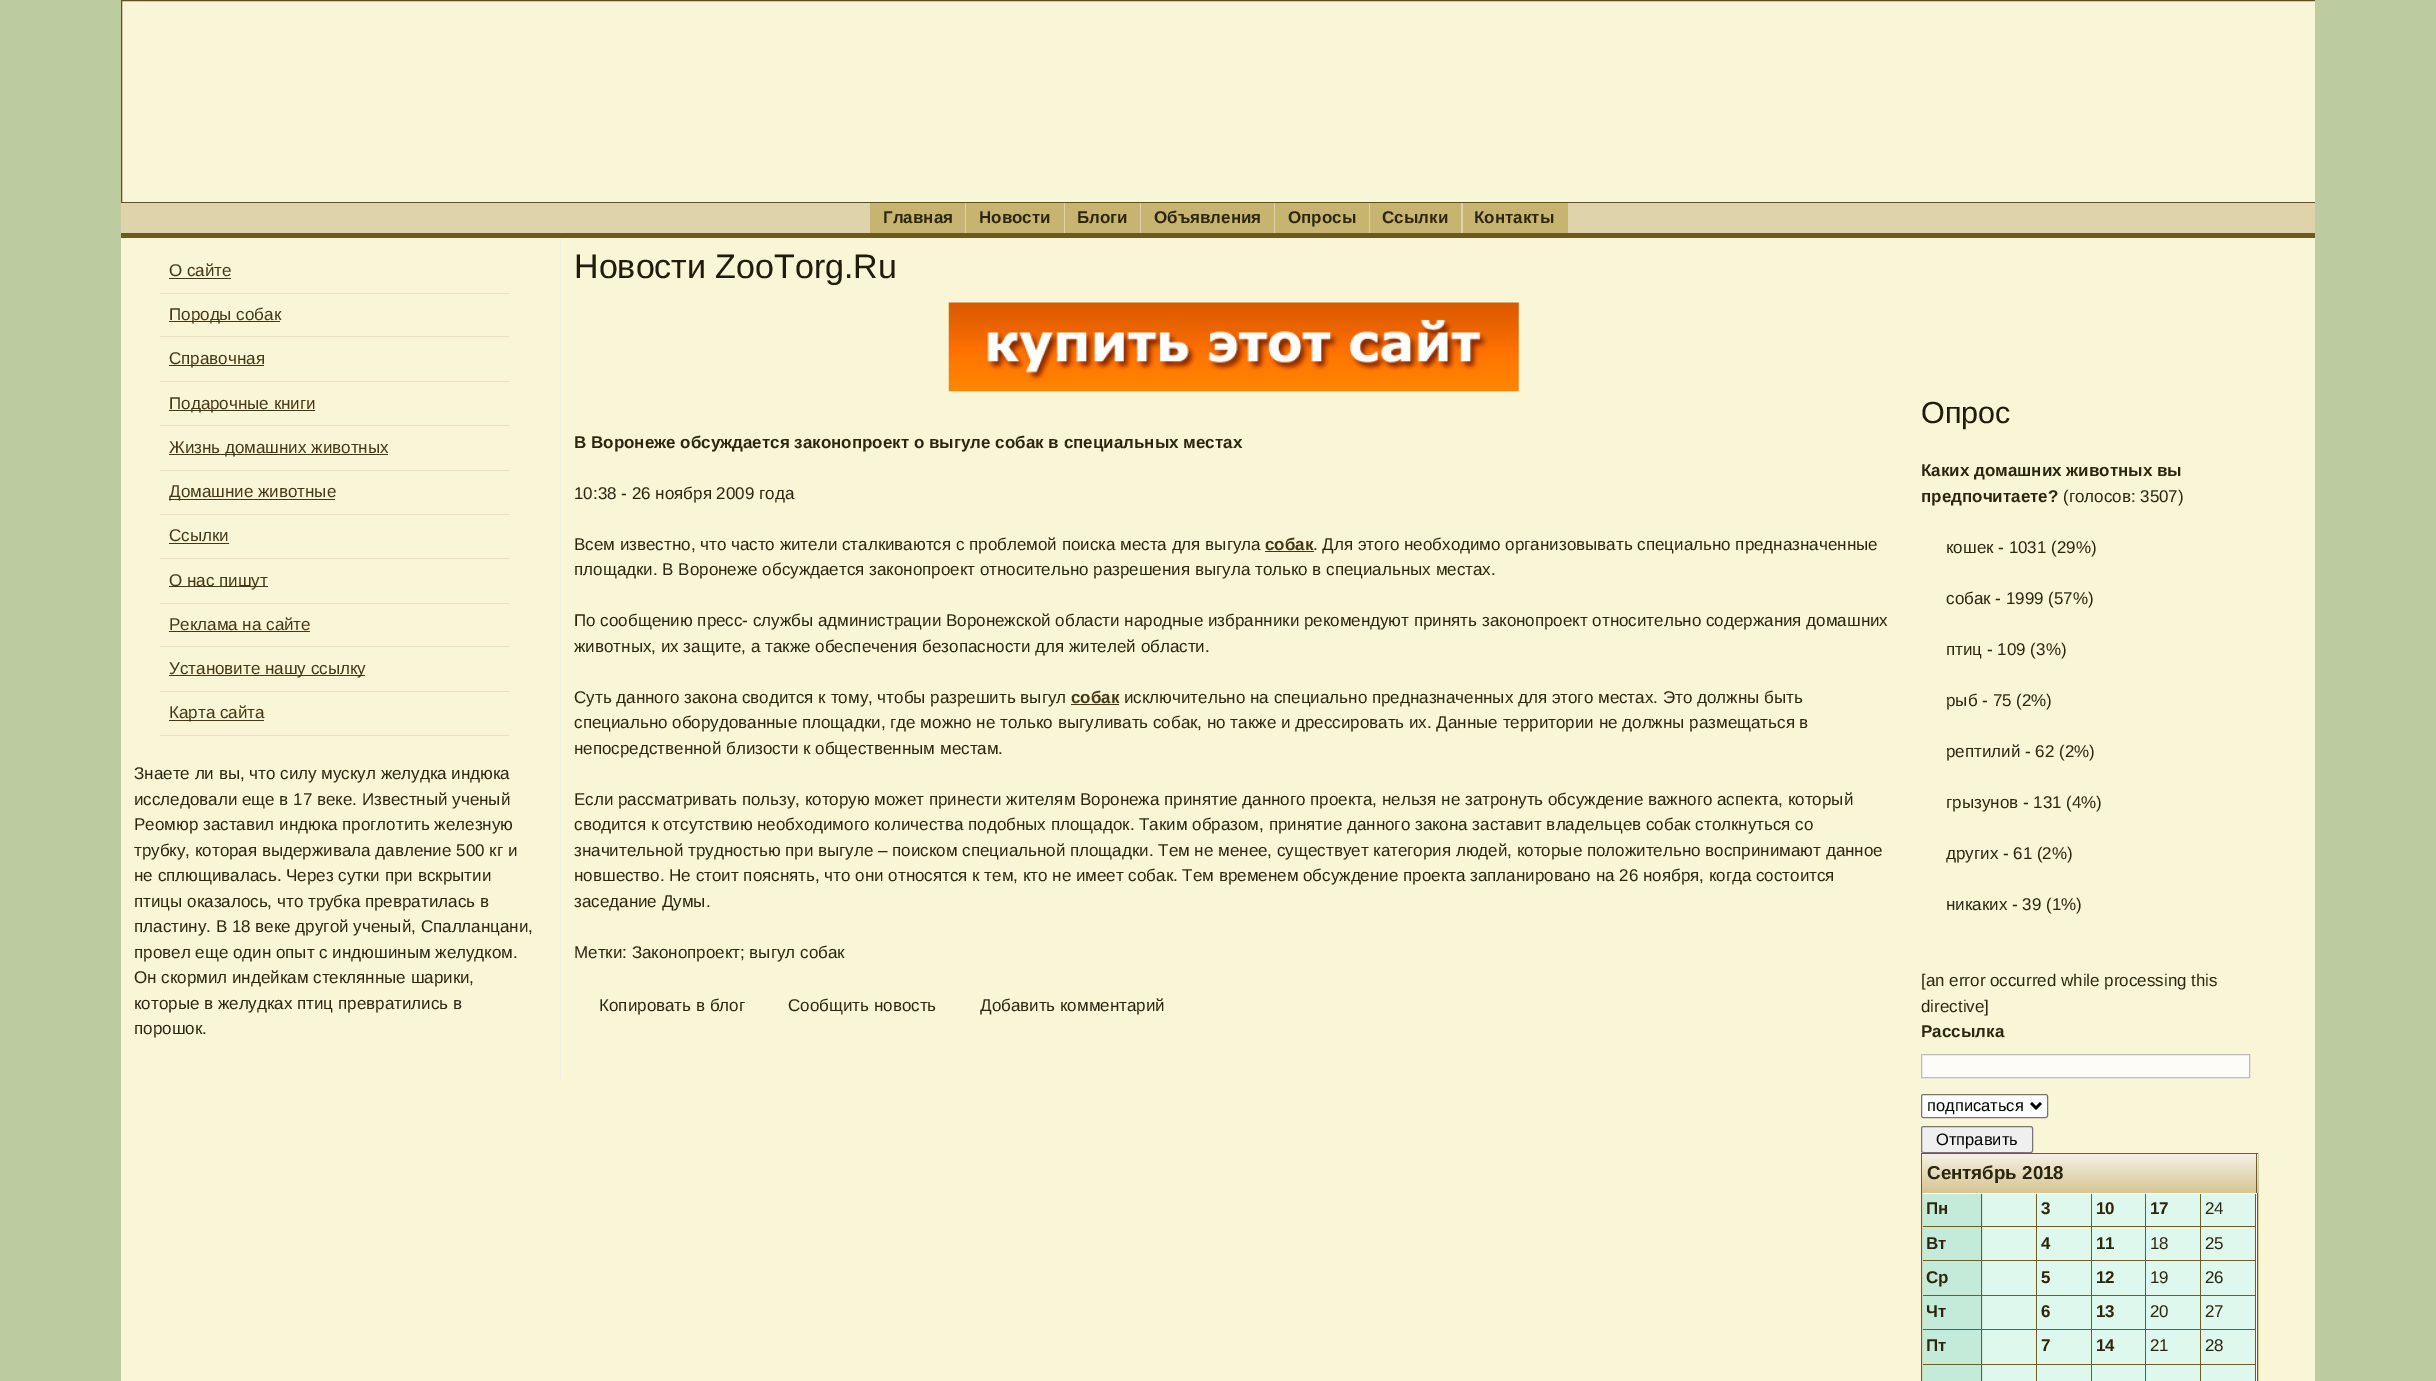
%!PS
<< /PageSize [2436 1381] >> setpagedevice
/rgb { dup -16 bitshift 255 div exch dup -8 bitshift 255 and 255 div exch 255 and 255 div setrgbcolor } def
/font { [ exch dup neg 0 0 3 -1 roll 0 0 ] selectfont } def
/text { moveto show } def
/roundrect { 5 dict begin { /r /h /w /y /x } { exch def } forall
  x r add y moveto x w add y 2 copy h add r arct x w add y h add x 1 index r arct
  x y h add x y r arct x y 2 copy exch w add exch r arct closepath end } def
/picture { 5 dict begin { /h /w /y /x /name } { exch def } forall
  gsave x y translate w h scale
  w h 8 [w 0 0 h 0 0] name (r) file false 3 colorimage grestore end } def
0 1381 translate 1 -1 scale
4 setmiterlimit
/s1 { /LiberationSans-Bold 17 font 16#2C260E rgb } def
/s2 { /LiberationSans-Regular 17 font 16#433815 rgb } def
/s3 { /LiberationSans-Regular 17 font 16#2C260E rgb } def
/s4 { /LiberationSans-Regular 34 font 16#211C0A rgb } def
/s5 { /LiberationSans-Bold 17 font 16#433815 rgb } def
/s6 { /LiberationSans-Regular 30.5 font 16#211C0A rgb } def
/s7 { /LiberationSans-Regular 16.5 font 16#000000 rgb } def
/s8 { /LiberationSans-Bold 18.75 font 16#2C260E rgb } def
16#BDCBA1 rgb
0 0 2436 1381 rectfill
16#F9F5D7 rgb
121 1 2194 1380 rectfill
gsave
121 0 2194 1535 rectclip
16#5F501D rgb
121.5 0.5 2196 202 rectstroke
grestore
16#DFD3AB rgb
121 203 2194 30 rectfill
16#6A5921 rgb
121 233 2194 5 rectfill
16#C8B471 rgb
870 203 95 30 rectfill
s1
(Главная) 883 223 text
16#C8B471 rgb
966 203 98 30 rectfill
s1
(Новости) 979 223 text
16#C8B471 rgb
1065 203 75 30 rectfill
s1
(Блоги) 1077 223 text
16#C8B471 rgb
1141 203 133 30 rectfill
s1
(Объявления) 1154 223 text
16#C8B471 rgb
1275 203 94 30 rectfill
s1
(Опросы) 1288 223 text
16#C8B471 rgb
1370 203 91 30 rectfill
s1
(Ссылки) 1382 223 text
16#C8B471 rgb
1463 203 105 30 rectfill
s1
(Контакты) 1474 223 text
16#EEEEEE rgb
560 238 1 842 rectfill
16#E9E1C5 rgb
160 293 349 1 rectfill
s2
(О сайте) 169 276 text
169 278 62 1 rectfill
16#E9E1C5 rgb
160 336 349 1 rectfill
16#433815 rgb
169 321 111 1 rectfill
(Породы собак) 169 320 text
16#E9E1C5 rgb
160 381 349 1 rectfill
16#433815 rgb
169 365 95 1 rectfill
(Справочная) 169 364 text
16#E9E1C5 rgb
160 425 349 1 rectfill
16#433815 rgb
169 410 146 1 rectfill
(Подарочные книги) 169 409 text
16#E9E1C5 rgb
160 470 349 1 rectfill
16#433815 rgb
169 454 219 1 rectfill
(Жизнь домашних животных) 169 453 text
16#E9E1C5 rgb
160 514 349 1 rectfill
16#433815 rgb
169 499 166 1 rectfill
(Домашние животные) 169 497 text
16#E9E1C5 rgb
160 558 349 1 rectfill
s2
(Ссылки) 169 541 text
169 543 60 1 rectfill
16#E9E1C5 rgb
160 603 349 1 rectfill
16#433815 rgb
169 586 99 1 rectfill
(О нас пишут) 169 586 text
16#E9E1C5 rgb
160 646 349 1 rectfill
s2
(Реклама на сайте) 169 630 text
169 631 141 1 rectfill
16#E9E1C5 rgb
160 691 349 1 rectfill
16#433815 rgb
169 675 196 1 rectfill
(Установите нашу ссылку) 169 674 text
16#E9E1C5 rgb
160 735 349 1 rectfill
16#433815 rgb
169 720 95 1 rectfill
(Карта сайта) 169 718 text
s3
(Знаете ли вы, что силу мускул желудка индюка) 134 779 text
(исследовали еще в 17 веке. Известный ученый) 134 805 text
(Реомюр заставил индюка проглотить железную) 134 830 text
(трубку, которая выдерживала давление 500 кг и) 134 856 text
(не сплющивалась. Через сутки при вскрытии) 134 881 text
(птицы оказалось, что трубка превратилась в) 134 907 text
(пластину. В 18 веке другой ученый, Спалланцани,) 134 932 text
(провел еще один опыт с индюшиным желудком.) 134 958 text
(Он скормил индейкам стеклянные шарики,) 134 983 text
(которые в желудках птиц превратились в) 134 1009 text
(порошок.) 134 1034 text
s4
(Новости ZooTorg.Ru) 574 278 text
(pic1.raw) 948 302 571 90 picture
s1
(В Воронеже обсуждается законопроект о выгуле собак в специальных местах) 574 448 text
s3
(10:38 - 26 ноября 2009 года) 574 499 text
(Всем известно, что часто жители сталкиваются с проблемой поиска места для выгула) 574 550 text
s5
(собак) 1265 550 text
1265 551 49 1 rectfill
s3
(. Для этого необходимо организовывать специально предназначенные) 1313 550 text
(площадки. В Воронеже обсуждается законопроект относительно разрешения выгула только в специальных местах.) 574 575 text
(По сообщению пресс- службы администрации Воронежской области народные избранники рекомендуют принять законопроект относительно содержания домашних) 574 626 text
(животных, их защите, а также обеспечения безопасности для жителей области.) 574 652 text
(Суть данного закона сводится к тому, чтобы разрешить выгул) 574 703 text
s5
(собак) 1071 703 text
1071 704 48 1 rectfill
s3
(исключительно на специально предназначенных для этого местах. Это должны быть) 1124 703 text
(специально оборудованные площадки, где можно не только выгуливать собак, но также и дрессировать их. Данные территории не должны размещаться в) 574 728 text
(непосредственной близости к общественным местам.) 574 754 text
(Если рассматривать пользу, которую может принести жителям Воронежа принятие данного проекта, нельзя не затронуть обсуждение важного аспекта, который) 574 805 text
(сводится к отсутствию необходимого количества подобных площадок. Таким образом, принятие данного закона заставит владельцев собак столкнуться со) 574 830 text
(значительной трудностью при выгуле – поиском специальной площадки. Тем не менее, существует категория людей, которые положительно воспринимают данное) 574 856 text
(новшество. Не стоит пояснять, что они относятся к тем, кто не имеет собак. Тем временем обсуждение проекта запланировано на 26 ноября, когда состоится) 574 881 text
(заседание Думы.) 574 907 text
(Метки: Законопроект; выгул собак) 574 958 text
(Копировать в блог) 599 1011 text
(Сообщить новость) 788 1011 text
(Добавить комментарий) 980 1011 text
s6
(Опрос) 1921 423 text
s1
(Каких домашних животных вы) 1921 476 text
(предпочитаете?) 1921 502 text
s3
(\(голосов: 3507\)) 2063 502 text
(кошек - 1031 \(29%\)) 1946 553 text
(собак - 1999 \(57%\)) 1946 604 text
(птиц - 109 \(3%\)) 1946 655 text
(рыб - 75 \(2%\)) 1946 706 text
(рептилий - 62 \(2%\)) 1946 757 text
(грызунов - 131 \(4%\)) 1946 808 text
(других - 61 \(2%\)) 1946 859 text
(никаких - 39 \(1%\)) 1946 910 text
([an error occurred while processing this) 1921 986 text
(directive]) 1921 1012 text
s1
(Рассылка) 1921 1037 text
16#FDFCF9 rgb
1921.5 1054.5 moveto 2249.5 1054.5 lineto 2249.5 1077.5 lineto 1921.5 1077.5 lineto closepath gsave fill grestore
16#BBBBBB rgb
stroke
16#FFFFFF rgb
1921.5 1094.5 126 23 2 roundrect gsave fill grestore
16#767676 rgb
stroke
16#000000 rgb
2.5 setlinewidth
2031 1103 moveto 2036 1108 lineto 2041 1103 lineto stroke
s7
(подписаться) 1927 1111 text
16#EFEFEF rgb
1921.5 1126.5 111 26 2 roundrect gsave fill grestore
16#767676 rgb
1 setlinewidth
stroke
s7
(Отправить) 1936 1145 text
16#FDFCF9 rgb
1922 1193 335 188 rectfill
16#6F5E22 rgb
1921.5 1153.5 336 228 rectstroke
gsave 1922 1154 moveto 2258 1154 lineto 2258 1193 lineto 1922 1193 lineto closepath clip newpath
<< /ShadingType 2 /ColorSpace /DeviceRGB /Coords [2089 1154 2089 1193] /Extend [true true] /Function << /FunctionType 2 /Domain [0 1] /C0 [0.961 0.945 0.898] /C1 [0.835 0.773 0.569] /N 1 >> >> shfill grestore
2256 1153 1 40 rectfill
s8
(Сентябрь 2018) 1927 1179 text
16#C4EBDA rgb
1923 1194 60 66 rectfill
16#6F5E22 rgb
1981 1194 1 67 rectfill
1923 1226 60 1 rectfill
s1
(Пн) 1926 1214 text
16#DFF8ED rgb
1983 1194 162 34 rectfill
16#6F5E22 rgb
2036 1194 1 34 rectfill
1983 1226 55 1 rectfill
2091 1194 1 34 rectfill
2038 1226 55 1 rectfill
s1
(3) 2041 1214 text
16#6F5E22 rgb
2145 1194 1 187 rectfill
2093 1226 53 1 rectfill
s1
(10) 2096 1214 text
16#DFF8ED rgb
2146 1194 54 66 rectfill
16#6F5E22 rgb
2200 1194 1 187 rectfill
2146 1226 55 1 rectfill
s1
(17) 2150 1214 text
16#DFF8ED rgb
2201 1194 54 66 rectfill
16#6F5E22 rgb
2255 1194 1 187 rectfill
2201 1226 55 1 rectfill
s3
(24) 2205 1214 text
16#6F5E22 rgb
1923 1260 60 1 rectfill
s1
(Вт) 1926 1249 text
16#DFF8ED rgb
1983 1228 162 32 rectfill
16#6F5E22 rgb
2036 1228 1 33 rectfill
1983 1260 55 1 rectfill
2091 1228 1 33 rectfill
2038 1260 218 1 rectfill
s1
(4) 2041 1249 text
(11) 2096 1249 text
s3
(18) 2150 1249 text
(25) 2205 1249 text
16#C4EBDA rgb
1923 1261 60 34 rectfill
16#6F5E22 rgb
1981 1261 1 35 rectfill
1923 1295 60 1 rectfill
s1
(Ср) 1926 1283 text
16#DFF8ED rgb
1983 1261 162 34 rectfill
16#6F5E22 rgb
2036 1261 1 35 rectfill
1983 1295 55 1 rectfill
2091 1261 1 35 rectfill
2038 1295 218 1 rectfill
s1
(5) 2041 1283 text
(12) 2096 1283 text
16#DFF8ED rgb
2146 1261 54 34 rectfill
s3
(19) 2150 1283 text
16#DFF8ED rgb
2201 1261 54 34 rectfill
s3
(26) 2205 1283 text
16#C4EBDA rgb
1923 1296 60 33 rectfill
16#6F5E22 rgb
1981 1296 1 34 rectfill
1923 1329 60 1 rectfill
s1
(Чт) 1926 1317 text
16#DFF8ED rgb
1983 1296 162 33 rectfill
16#6F5E22 rgb
2036 1296 1 34 rectfill
1983 1329 55 1 rectfill
2091 1296 1 34 rectfill
2038 1329 218 1 rectfill
s1
(6) 2041 1317 text
(13) 2096 1317 text
16#DFF8ED rgb
2146 1296 54 33 rectfill
s3
(20) 2150 1317 text
16#DFF8ED rgb
2201 1296 54 33 rectfill
s3
(27) 2205 1317 text
16#C4EBDA rgb
1923 1330 60 34 rectfill
16#6F5E22 rgb
1981 1330 1 35 rectfill
1923 1364 60 1 rectfill
s1
(Пт) 1926 1351 text
16#DFF8ED rgb
1983 1330 162 34 rectfill
16#6F5E22 rgb
2036 1330 1 35 rectfill
1983 1364 55 1 rectfill
2091 1330 1 35 rectfill
2038 1364 218 1 rectfill
s1
(7) 2041 1351 text
(14) 2096 1351 text
16#DFF8ED rgb
2146 1330 54 34 rectfill
s3
(21) 2150 1351 text
16#DFF8ED rgb
2201 1330 54 34 rectfill
s3
(28) 2205 1351 text
16#C4EBDA rgb
1923 1365 60 16 rectfill
16#6F5E22 rgb
1981 1365 1 16 rectfill
16#DFF8ED rgb
1983 1365 162 16 rectfill
16#6F5E22 rgb
2036 1365 1 16 rectfill
2091 1365 1 16 rectfill
16#DFF8ED rgb
2146 1365 54 16 rectfill
2201 1365 54 16 rectfill
showpage
